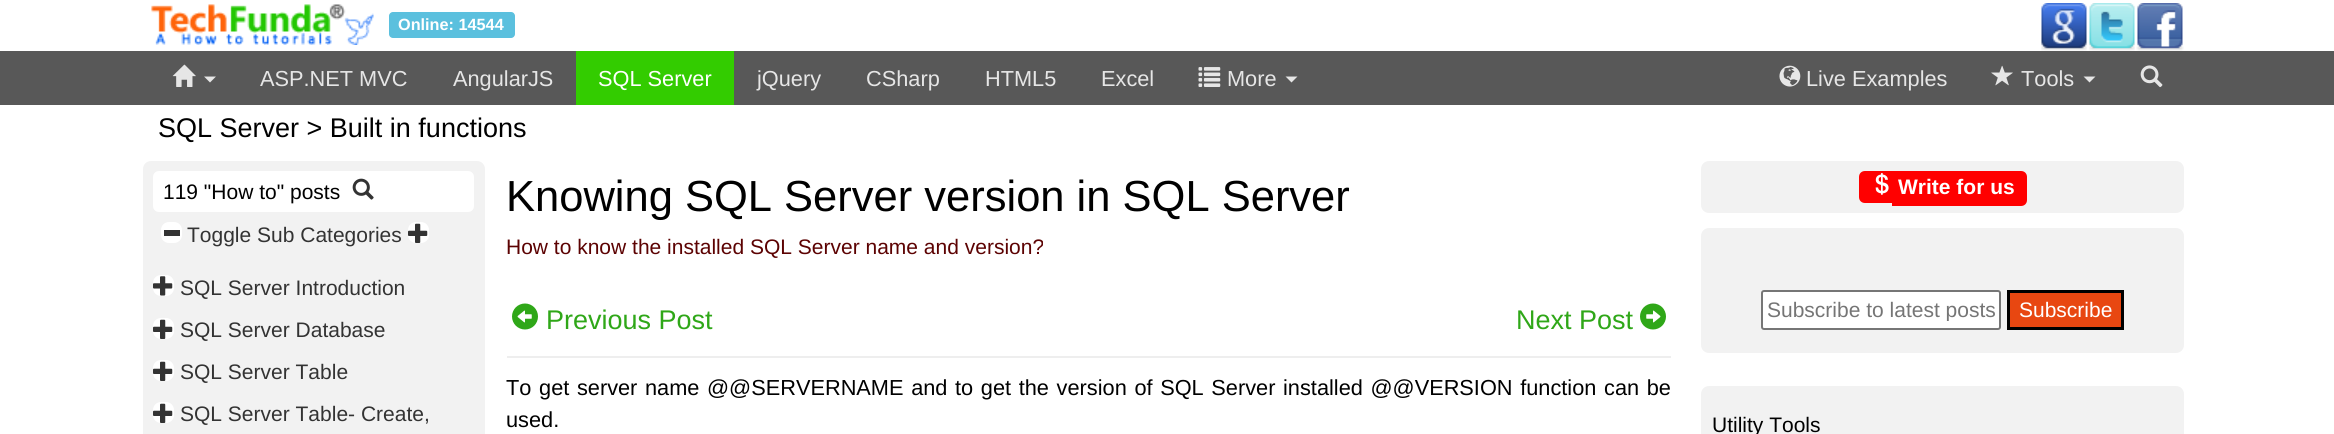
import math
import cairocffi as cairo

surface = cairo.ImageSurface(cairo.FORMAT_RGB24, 2334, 434)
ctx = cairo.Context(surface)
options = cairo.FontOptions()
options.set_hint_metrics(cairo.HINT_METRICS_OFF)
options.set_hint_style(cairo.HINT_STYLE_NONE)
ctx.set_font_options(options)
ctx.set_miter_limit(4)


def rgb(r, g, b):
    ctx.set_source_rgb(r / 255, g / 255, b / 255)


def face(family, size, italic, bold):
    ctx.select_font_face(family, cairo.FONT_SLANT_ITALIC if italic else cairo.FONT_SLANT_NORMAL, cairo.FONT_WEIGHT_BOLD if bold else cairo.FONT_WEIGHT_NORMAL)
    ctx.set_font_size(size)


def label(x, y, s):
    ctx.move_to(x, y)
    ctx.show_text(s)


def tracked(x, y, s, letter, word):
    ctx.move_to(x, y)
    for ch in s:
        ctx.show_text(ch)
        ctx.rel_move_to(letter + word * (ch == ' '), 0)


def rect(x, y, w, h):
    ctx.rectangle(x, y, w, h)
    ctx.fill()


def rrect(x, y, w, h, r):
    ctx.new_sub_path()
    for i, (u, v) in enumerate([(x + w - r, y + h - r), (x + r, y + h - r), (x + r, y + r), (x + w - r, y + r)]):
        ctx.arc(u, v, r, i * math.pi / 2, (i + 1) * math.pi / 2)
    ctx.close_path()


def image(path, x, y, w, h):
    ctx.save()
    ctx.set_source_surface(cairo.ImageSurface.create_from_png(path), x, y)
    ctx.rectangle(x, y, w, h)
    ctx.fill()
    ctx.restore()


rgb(255, 255, 255)
ctx.paint()
image('image0.png', 151, 4, 223, 41)
rgb(91, 192, 222)
rrect(389, 12, 126, 26, 4)
ctx.fill()
face('Liberation Sans', 16.25, 0, 1)
rgb(255, 255, 255)
label(398, 30, 'Online: 14544')
image('image1.png', 2041, 3, 46, 48)
image('image2.png', 2089, 3, 46, 48)
image('image3.png', 2136, 3, 48, 48)
rgb(88, 88, 88)
rect(0, 51, 2334, 54)
image('image4.png', 172, 64, 24, 23)
rgb(230, 230, 230)
ctx.new_path()
ctx.move_to(204, 76.5)
ctx.line_to(216, 76.5)
ctx.line_to(210, 82.5)
ctx.close_path()
ctx.fill()
face('Liberation Sans', 21.75, 0, 0)
label(260, 86, 'ASP.NET MVC')
label(453, 86, 'AngularJS')
rgb(51, 204, 0)
rect(576, 51, 158, 54)
rgb(255, 255, 255)
label(598, 86, 'SQL Server')
rgb(230, 230, 230)
label(757, 86, 'jQuery')
label(866, 86, 'CSharp')
label(985, 86, 'HTML5')
label(1101, 86, 'Excel')
image('image5.png', 1198, 67, 23, 20)
label(1227, 86, 'More')
ctx.new_path()
ctx.move_to(1285.5, 76.5)
ctx.line_to(1297.5, 76.5)
ctx.line_to(1291.5, 82.5)
ctx.close_path()
ctx.fill()
image('image6.png', 1779, 65, 22, 22)
label(1806, 86, 'Live Examples')
image('image7.png', 1991, 65, 22, 21)
label(2021, 86, 'Tools')
ctx.new_path()
ctx.move_to(2083.5, 76.5)
ctx.line_to(2095.5, 76.5)
ctx.line_to(2089.5, 82.5)
ctx.close_path()
ctx.fill()
image('image8.png', 2140, 65, 23, 23)
face('Liberation Sans', 27, 0, 0)
rgb(0, 0, 0)
label(158, 137, 'SQL Server > Built in functions')
rgb(242, 242, 242)
rrect(143, 161, 342, 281, 8)
ctx.fill()
rgb(255, 255, 255)
rrect(153, 171, 321, 41, 6)
ctx.fill()
face('Liberation Sans', 21, 0, 0)
rgb(0, 0, 0)
label(163, 199, '119 "How to" posts')
image('image9.png', 352, 178, 22, 22)
rgb(255, 255, 255)
rrect(161, 222, 21, 21, 8)
ctx.fill()
rgb(51, 51, 51)
rect(164, 230, 16, 6)
label(187, 242, 'Toggle Sub Categories')
rgb(255, 255, 255)
rrect(408, 222, 21, 21, 8)
ctx.fill()
image('image10.png', 408, 223, 20, 20)
rrect(153, 275, 21, 21, 8)
ctx.fill()
image('image11.png', 153, 276, 20, 20)
rgb(51, 51, 51)
label(180, 295, 'SQL Server Introduction')
rgb(255, 255, 255)
rrect(153, 318, 21, 21, 8)
ctx.fill()
image('image10.png', 153, 319, 20, 20)
rgb(51, 51, 51)
label(180, 337, 'SQL Server Database')
rgb(255, 255, 255)
rrect(153, 360, 21, 21, 8)
ctx.fill()
image('image10.png', 153, 361, 20, 20)
rgb(51, 51, 51)
label(180, 379, 'SQL Server Table')
rgb(255, 255, 255)
rrect(153, 402, 21, 21, 8)
ctx.fill()
image('image10.png', 153, 403, 20, 20)
rgb(51, 51, 51)
label(180, 421, 'SQL Server Table- Create,')
face('Liberation Sans', 43.5, 0, 0)
rgb(0, 0, 0)
label(506, 211, 'Knowing SQL Server version in SQL Server')
face('Liberation Sans', 21, 0, 0)
rgb(92, 2, 2)
label(506, 254, 'How to know the installed SQL Server name and version?')
image('image12.png', 512, 303, 26, 27)
face('Liberation Sans', 27, 0, 0)
rgb(47, 167, 24)
label(546, 329, 'Previous Post')
label(1516, 329, 'Next Post')
image('image13.png', 1640, 303, 26, 27)
rgb(238, 238, 238)
rect(507, 356, 1164, 2)
face('Liberation Sans', 21.75, 0, 0)
rgb(0, 0, 0)
tracked(506, 395, 'To get server name @@SERVERNAME and to get the version of SQL Server installed @@VERSION function can be', 0, 1.6)
label(506, 427, 'used.')
rgb(242, 242, 242)
rrect(1701, 161, 483, 52, 8)
ctx.fill()
rgb(255, 0, 0)
ctx.new_path()
ctx.move_to(1865, 171)
ctx.line_to(1892, 171)
ctx.line_to(1892, 203)
ctx.line_to(1865, 203)
ctx.curve_to(1861.5, 203, 1859, 200.5, 1859, 197)
ctx.line_to(1859, 177)
ctx.curve_to(1859, 173.5, 1861.5, 171, 1865, 171)
ctx.close_path()
ctx.fill()
ctx.new_path()
ctx.move_to(1892, 171)
ctx.line_to(2021, 171)
ctx.curve_to(2024.5, 171, 2027, 173.5, 2027, 177)
ctx.line_to(2027, 200)
ctx.curve_to(2027, 203.5, 2024.5, 206, 2021, 206)
ctx.line_to(1892, 206)
ctx.close_path()
ctx.fill()
image('image14.png', 1875, 173, 14, 22)
face('Liberation Sans', 21, 0, 1)
rgb(255, 255, 255)
label(1898, 194, 'Write for us')
rgb(242, 242, 242)
rrect(1701, 228, 483, 125, 8)
ctx.fill()
rgb(255, 255, 255)
rrect(1762, 291, 238, 38, 2)
ctx.fill_preserve()
rgb(118, 118, 118)
ctx.stroke()
ctx.save()
ctx.rectangle(1767, 297, 228, 24)
ctx.clip()
face('Liberation Sans', 21, 0, 0)
rgb(117, 117, 117)
label(1767, 317, 'Subscribe to latest posts')
ctx.restore()
rgb(232, 71, 17)
ctx.rectangle(2008.5, 291.5, 114, 37)
ctx.fill_preserve()
rgb(0, 0, 0)
ctx.set_line_width(3)
ctx.stroke()
face('Liberation Sans', 21, 0, 0)
rgb(255, 255, 255)
label(2019, 317, 'Subscribe')
rgb(242, 242, 242)
rrect(1701, 386, 483, 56, 8)
ctx.fill()
rgb(0, 0, 0)
label(1712, 432, 'Utility Tools')
surface.write_to_png('render.png')
